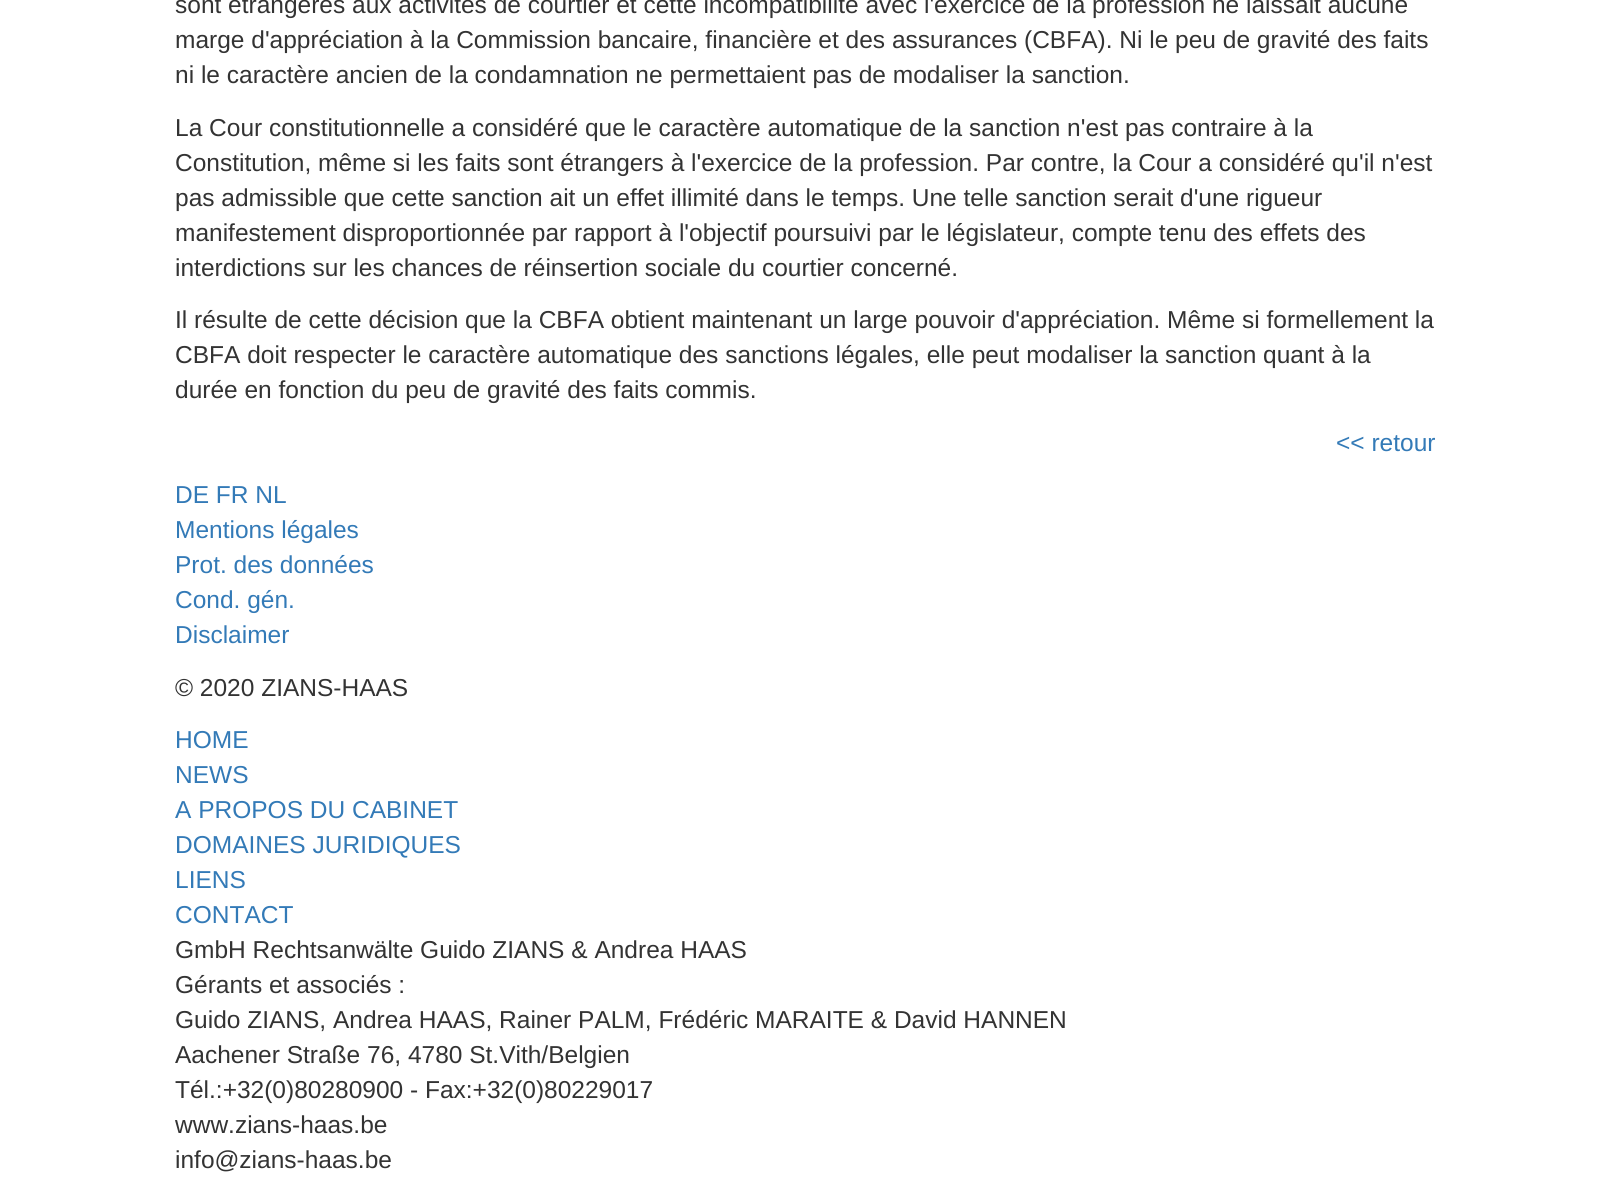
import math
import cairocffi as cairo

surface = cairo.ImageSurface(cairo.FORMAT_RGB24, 1609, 1187)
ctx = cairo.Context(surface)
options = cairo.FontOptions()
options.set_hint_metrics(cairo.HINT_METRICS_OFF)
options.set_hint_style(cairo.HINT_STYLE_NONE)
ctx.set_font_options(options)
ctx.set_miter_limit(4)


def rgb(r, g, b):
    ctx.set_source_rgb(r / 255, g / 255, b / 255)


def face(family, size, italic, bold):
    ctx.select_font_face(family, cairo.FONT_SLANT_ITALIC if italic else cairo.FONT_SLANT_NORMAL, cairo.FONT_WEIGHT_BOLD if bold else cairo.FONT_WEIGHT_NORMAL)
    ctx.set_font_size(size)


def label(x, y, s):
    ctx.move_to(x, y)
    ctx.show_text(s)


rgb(255, 255, 255)
ctx.paint()
face('Liberation Sans', 24.5, 0, 0)
rgb(51, 51, 51)
label(175, 13, 'sont étrangères aux activités de courtier et cette incompatibilité avec l\'exercice de la profession ne laissait aucune')
label(175, 48, 'marge d\'appréciation à la Commission bancaire, financière et des assurances (CBFA). Ni le peu de gravité des faits')
label(175, 83, 'ni le caractère ancien de la condamnation ne permettaient pas de modaliser la sanction.')
label(175, 136, 'La Cour constitutionnelle a considéré que le caractère automatique de la sanction n\'est pas contraire à la')
label(175, 171, 'Constitution, même si les faits sont étrangers à l\'exercice de la profession. Par contre, la Cour a considéré qu\'il n\'est')
label(175, 206, 'pas admissible que cette sanction ait un effet illimité dans le temps. Une telle sanction serait d\'une rigueur')
label(175, 241, 'manifestement disproportionnée par rapport à l\'objectif poursuivi par le législateur, compte tenu des effets des')
label(175, 276, 'interdictions sur les chances de réinsertion sociale du courtier concerné.')
label(175, 328, 'Il résulte de cette décision que la CBFA obtient maintenant un large pouvoir d\'appréciation. Même si formellement la')
label(175, 363, 'CBFA doit respecter le caractère automatique des sanctions légales, elle peut modaliser la sanction quant à la')
label(175, 398, 'durée en fonction du peu de gravité des faits commis.')
rgb(51, 122, 183)
label(1336, 451, '<< retour')
label(175, 503, 'DE FR NL')
label(175, 538, 'Mentions légales')
label(175, 573, 'Prot. des données')
label(175, 608, 'Cond. gén.')
label(175, 643, 'Disclaimer')
rgb(51, 51, 51)
label(175, 696, '© 2020 ZIANS-HAAS')
rgb(51, 122, 183)
label(175, 748, 'HOME')
label(175, 783, 'NEWS')
label(175, 818, 'A PROPOS DU CABINET')
label(175, 853, 'DOMAINES JURIDIQUES')
label(175, 888, 'LIENS')
label(175, 923, 'CONTACT')
rgb(51, 51, 51)
label(175, 958, 'GmbH Rechtsanwälte Guido ZIANS & Andrea HAAS')
label(175, 993, 'Gérants et associés :')
label(175, 1028, 'Guido ZIANS, Andrea HAAS, Rainer PALM, Frédéric MARAITE & David HANNEN')
label(175, 1063, 'Aachener Straße 76, 4780 St.Vith/Belgien')
label(175, 1098, 'Tél.:+32(0)80280900 - Fax:+32(0)80229017')
label(175, 1133, 'www.zians-haas.be')
label(175, 1168, 'info@zians-haas.be')
surface.write_to_png('render.png')
